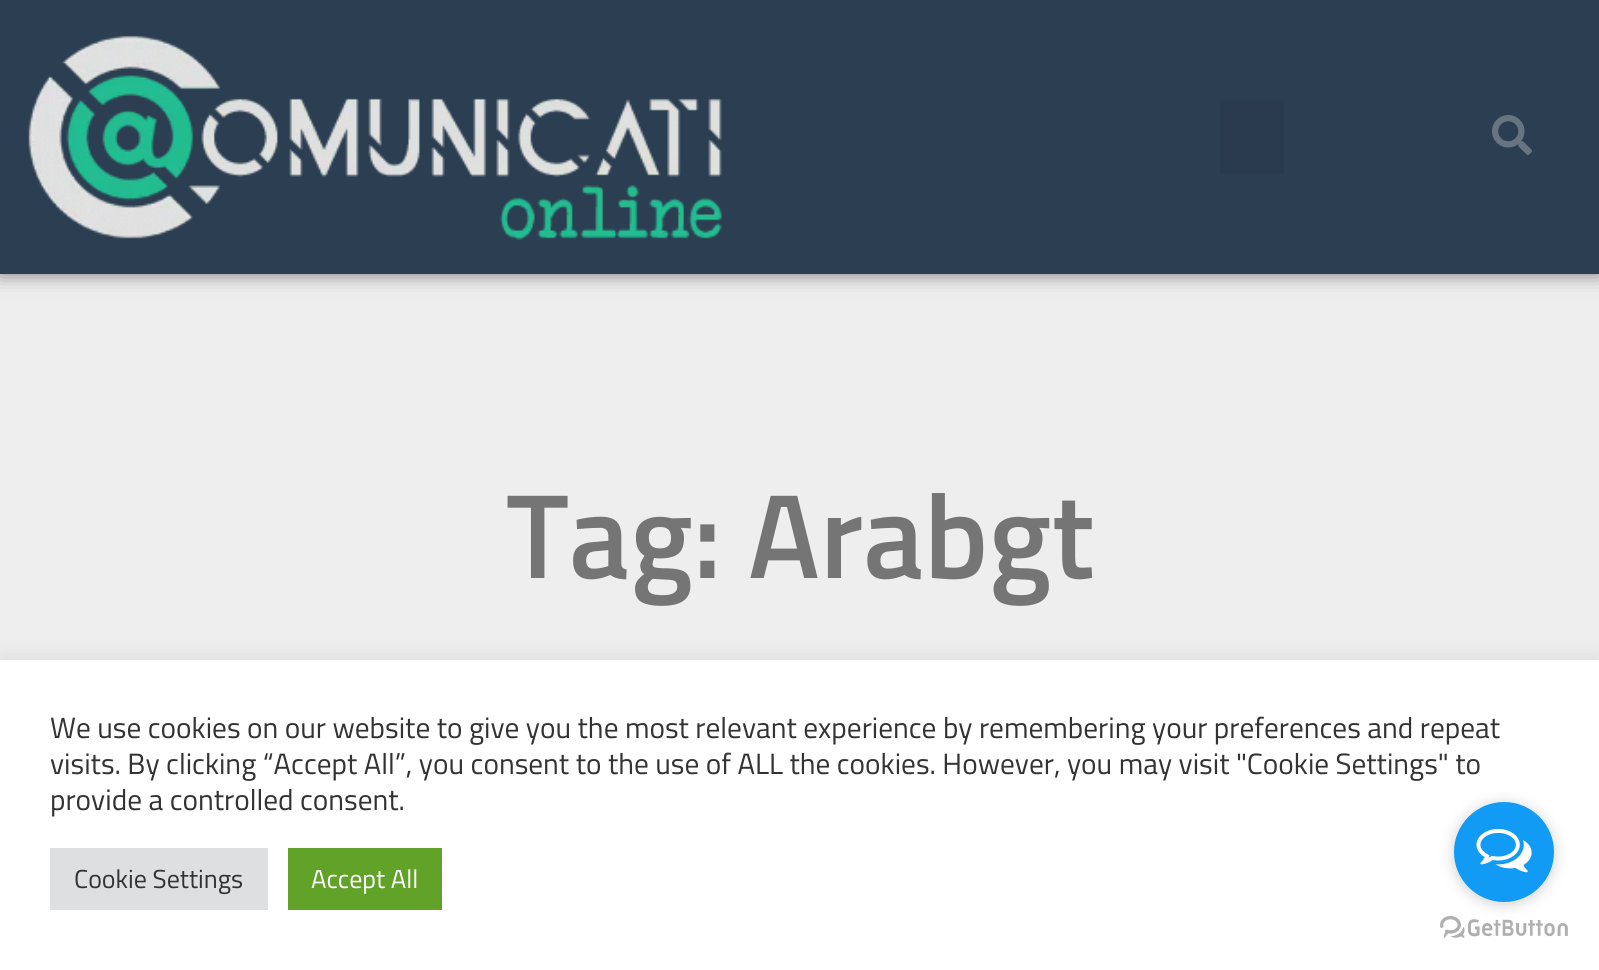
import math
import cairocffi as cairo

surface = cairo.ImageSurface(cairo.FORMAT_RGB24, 1599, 970)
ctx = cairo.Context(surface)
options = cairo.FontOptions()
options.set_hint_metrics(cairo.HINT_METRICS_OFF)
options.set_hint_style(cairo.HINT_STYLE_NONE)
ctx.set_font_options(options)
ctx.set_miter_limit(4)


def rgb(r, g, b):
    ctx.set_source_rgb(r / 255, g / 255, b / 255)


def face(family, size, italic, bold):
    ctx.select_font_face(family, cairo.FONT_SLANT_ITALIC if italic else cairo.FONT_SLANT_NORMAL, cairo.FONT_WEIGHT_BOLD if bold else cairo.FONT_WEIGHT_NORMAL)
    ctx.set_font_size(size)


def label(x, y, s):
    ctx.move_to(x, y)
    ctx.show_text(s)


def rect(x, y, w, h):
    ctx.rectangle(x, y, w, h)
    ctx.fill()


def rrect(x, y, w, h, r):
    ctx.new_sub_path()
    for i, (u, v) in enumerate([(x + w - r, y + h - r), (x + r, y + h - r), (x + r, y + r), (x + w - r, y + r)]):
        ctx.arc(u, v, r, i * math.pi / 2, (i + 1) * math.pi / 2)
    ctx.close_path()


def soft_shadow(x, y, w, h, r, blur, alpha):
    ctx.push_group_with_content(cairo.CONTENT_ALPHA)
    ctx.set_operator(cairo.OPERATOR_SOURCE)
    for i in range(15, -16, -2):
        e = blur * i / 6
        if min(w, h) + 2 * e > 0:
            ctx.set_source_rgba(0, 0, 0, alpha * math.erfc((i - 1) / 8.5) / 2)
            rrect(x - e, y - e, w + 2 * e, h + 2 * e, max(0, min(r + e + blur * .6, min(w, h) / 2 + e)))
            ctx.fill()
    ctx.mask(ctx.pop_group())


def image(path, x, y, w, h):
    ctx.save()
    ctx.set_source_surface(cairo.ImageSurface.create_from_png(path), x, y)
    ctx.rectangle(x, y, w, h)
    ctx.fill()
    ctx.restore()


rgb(238, 238, 238)
ctx.paint()
rgb(0, 0, 0)
soft_shadow(0, 0, 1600, 274, 0, 10, 0.5)
rgb(44, 62, 81)
rect(0, 0, 1599, 274)
image('image0.png', 28, 35, 694, 205)
rgb(42, 59, 77)
rect(1220, 100, 64, 74)
image('image1.png', 1492, 115, 40, 40)
face('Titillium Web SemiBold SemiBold', 120, 0, 0)
rgb(117, 117, 117)
label(506, 578, 'Tag: Arabgt')
rgb(172, 171, 171)
soft_shadow(0, 658, 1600, 310, 0, 10, 0.3)
rgb(255, 255, 255)
rect(0, 660, 1599, 310)
face('Titillium Web', 29.35, 0, 0)
rgb(51, 51, 51)
label(50, 738, 'We use cookies on our website to give you the most relevant experience by remembering your preferences and repeat')
label(50, 774, 'visits. By clicking “Accept All”, you consent to the use of ALL the cookies. However, you may visit "Cookie Settings" to')
label(50, 810, 'provide a controlled consent.')
rgb(222, 223, 224)
rect(50, 848, 218, 62)
face('Titillium Web', 26, 0, 0)
rgb(51, 51, 51)
label(74, 888, 'Cookie Settings')
rgb(97, 162, 41)
rect(288, 848, 154, 62)
rgb(255, 255, 255)
label(311, 888, 'Accept All')
image('image3.png', 1440, 916, 128, 22)
rgb(136, 136, 136)
soft_shadow(1454, 804, 100, 100, 50, 7, 0.4)
rgb(18, 155, 244)
ctx.arc(1504, 852, 50, 0, 2 * math.pi)
ctx.fill()
image('image2.png', 1476, 829, 56, 44)
surface.write_to_png('render.png')
